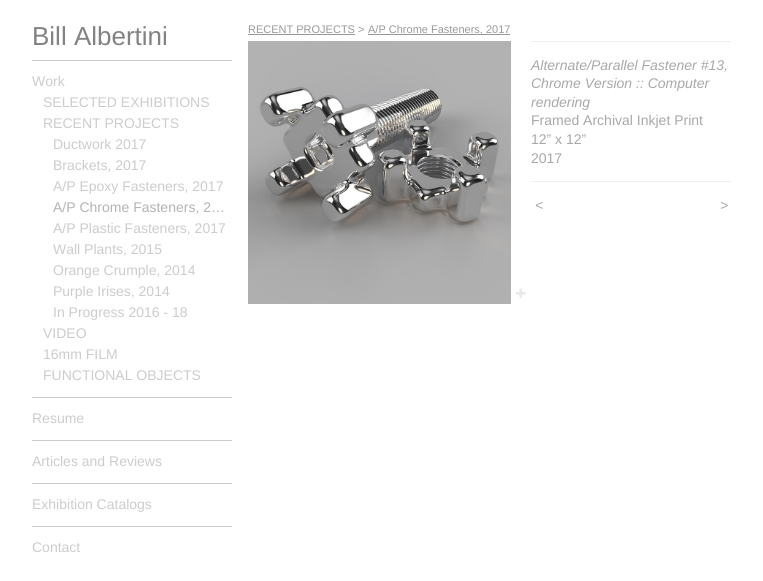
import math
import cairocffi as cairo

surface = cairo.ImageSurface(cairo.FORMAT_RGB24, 763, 581)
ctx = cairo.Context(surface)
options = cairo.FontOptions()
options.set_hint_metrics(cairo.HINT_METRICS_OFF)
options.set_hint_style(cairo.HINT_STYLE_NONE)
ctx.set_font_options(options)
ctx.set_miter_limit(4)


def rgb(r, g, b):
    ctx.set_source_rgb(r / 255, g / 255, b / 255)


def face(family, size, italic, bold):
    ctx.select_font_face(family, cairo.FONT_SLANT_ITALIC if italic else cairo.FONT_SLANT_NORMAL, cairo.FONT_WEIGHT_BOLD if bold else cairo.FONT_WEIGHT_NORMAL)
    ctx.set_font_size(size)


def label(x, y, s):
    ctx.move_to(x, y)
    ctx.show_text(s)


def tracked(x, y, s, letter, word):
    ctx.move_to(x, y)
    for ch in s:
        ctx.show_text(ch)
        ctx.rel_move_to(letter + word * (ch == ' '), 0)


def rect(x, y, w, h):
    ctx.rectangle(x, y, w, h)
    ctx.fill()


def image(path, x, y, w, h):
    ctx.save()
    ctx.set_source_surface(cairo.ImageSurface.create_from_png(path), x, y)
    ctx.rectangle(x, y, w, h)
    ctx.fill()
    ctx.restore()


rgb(255, 255, 255)
ctx.paint()
face('Liberation Sans', 26, 0, 0)
rgb(130, 130, 130)
label(32, 45, 'Bill Albertini')
rgb(204, 204, 204)
rect(32, 60, 200, 1)
face('Liberation Sans', 14, 0, 0)
label(32, 86, 'Work')
label(43, 107, 'SELECTED EXHIBITIONS')
label(43, 128, 'RECENT PROJECTS')
label(53, 149, 'Ductwork 2017')
label(53, 170, 'Brackets, 2017')
label(53, 191, 'A/P Epoxy Fasteners, 2017')
rgb(179, 179, 179)
label(53, 212, 'A/P Chrome Fasteners, 2…')
rgb(204, 204, 204)
label(53, 233, 'A/P Plastic Fasteners, 2017')
label(53, 254, 'Wall Plants, 2015')
label(53, 275, 'Orange Crumple, 2014')
label(53, 296, 'Purple Irises, 2014')
label(53, 317, 'In Progress 2016 - 18')
label(43, 338, 'VIDEO')
label(43, 359, '16mm FILM')
label(43, 380, 'FUNCTIONAL OBJECTS')
rect(32, 397, 200, 1)
label(32, 423, 'Resume')
rect(32, 440, 200, 1)
label(32, 466, 'Articles and Reviews')
rect(32, 483, 200, 1)
label(32, 509, 'Exhibition Catalogs')
rect(32, 526, 200, 1)
label(32, 552, 'Contact')
face('Liberation Sans', 11, 0, 0)
rgb(153, 153, 153)
label(248, 33, 'RECENT PROJECTS >')
rect(248, 34, 107, 1)
rect(368, 34, 142, 1)
label(368, 33, 'A/P Chrome Fasteners, 2017')
image('image0.png', 248, 41, 263, 263)
image('image1.png', 516, 288, 10, 10)
rgb(238, 238, 238)
rect(531, 41, 200, 1)
face('Liberation Sans', 14, 1, 0)
rgb(168, 168, 168)
label(531, 70, 'Alternate/Parallel Fastener #13,')
label(531, 88, 'Chrome Version :: Computer')
label(531, 107, 'rendering')
face('Liberation Sans', 14, 0, 0)
label(531, 125, 'Framed Archival Inkjet Print')
label(531, 144, '12” x 12”')
label(531, 163, '2017')
rgb(238, 238, 238)
rect(531, 181, 200, 1)
face('Liberation Sans', 14, 1, 0)
rgb(168, 168, 168)
tracked(535, 210, '<', 1, 0)
tracked(720, 210, '>', 1, 0)
surface.write_to_png('render.png')
